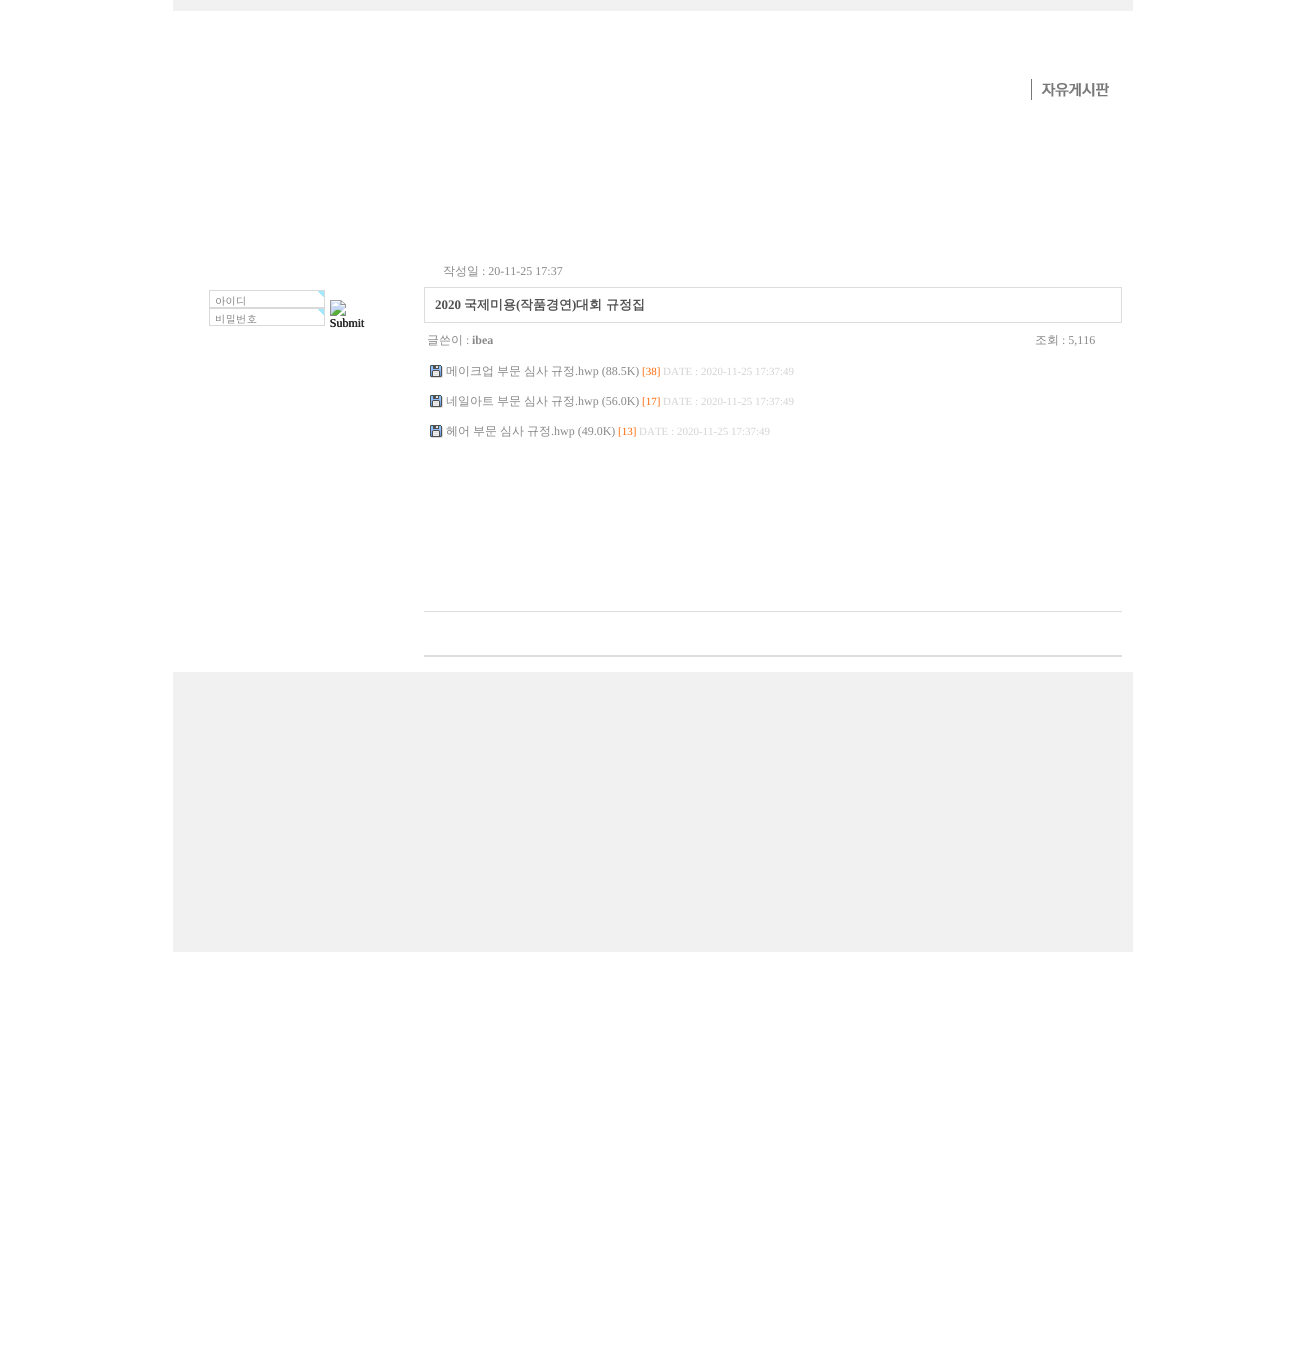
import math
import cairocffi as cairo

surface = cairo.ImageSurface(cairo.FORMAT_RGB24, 1306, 1365)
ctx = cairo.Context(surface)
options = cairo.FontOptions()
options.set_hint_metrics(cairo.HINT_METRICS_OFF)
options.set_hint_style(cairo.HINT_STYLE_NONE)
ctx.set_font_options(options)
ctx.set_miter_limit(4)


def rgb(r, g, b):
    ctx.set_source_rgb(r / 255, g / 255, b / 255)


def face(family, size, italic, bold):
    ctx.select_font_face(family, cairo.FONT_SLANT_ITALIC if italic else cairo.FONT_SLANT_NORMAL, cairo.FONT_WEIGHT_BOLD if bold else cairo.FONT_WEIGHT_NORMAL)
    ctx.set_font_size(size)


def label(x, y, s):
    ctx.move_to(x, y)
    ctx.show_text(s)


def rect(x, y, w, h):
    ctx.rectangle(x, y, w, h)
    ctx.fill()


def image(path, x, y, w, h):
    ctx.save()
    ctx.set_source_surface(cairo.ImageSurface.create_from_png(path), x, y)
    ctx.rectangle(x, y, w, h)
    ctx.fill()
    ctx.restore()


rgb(255, 255, 255)
ctx.paint()
rgb(241, 241, 241)
rect(173, 0, 960, 11)
image('image0.png', 1031, 79, 78, 21)
image('image1.png', 318, 291, 6, 6)
ctx.rectangle(209.5, 290.5, 115, 17)
rgb(217, 217, 217)
ctx.set_line_width(1)
ctx.stroke()
face('Dotum', 10.5, 0, 0)
rgb(119, 119, 119)
label(215, 305, '아이디')
image('image1.png', 318, 309, 6, 6)
ctx.rectangle(209.5, 308.5, 115, 17)
rgb(217, 217, 217)
ctx.stroke()
rgb(119, 119, 119)
label(215, 323, '비밀번호')
image('image2.png', 330, 300, 34, 27)
face('Liberation Serif', 12, 0, 0)
rgb(34, 34, 34)
label(330, 327, 'Submit')
face('WenQuanYi Zen Hei Medium', 12, 0, 0)
rgb(136, 136, 136)
label(443, 275, '작성일')
face('Liberation Serif', 12, 0, 0)
label(482, 275, ': 20-11-25 17:37')
ctx.rectangle(424.5, 287.5, 697, 35)
rgb(221, 221, 221)
ctx.stroke()
face('Liberation Serif', 13, 0, 1)
rgb(80, 80, 80)
label(435, 309, '2020')
face('WenQuanYi Zen Hei', 13, 0, 1)
label(464, 309, '국제미용')
face('Liberation Serif', 13, 0, 1)
label(516, 309, '(')
face('WenQuanYi Zen Hei', 13, 0, 1)
label(520, 309, '작품경연')
face('Liberation Serif', 13, 0, 1)
label(572, 309, ')')
face('WenQuanYi Zen Hei', 13, 0, 1)
label(576, 309, '대회 규정집')
face('WenQuanYi Zen Hei Medium', 12, 0, 0)
rgb(136, 136, 136)
label(427, 344, '글쓴이')
face('Liberation Serif', 12, 0, 0)
label(466, 344, ':')
face('Liberation Serif', 12, 0, 1)
label(472, 344, 'ibea')
face('WenQuanYi Zen Hei Medium', 12, 0, 0)
label(1035, 344, '조회')
face('Liberation Serif', 12, 0, 0)
label(1062, 344, ': 5,116')
image('image3.png', 430, 365, 13, 13)
face('WenQuanYi Zen Hei Medium', 12, 0, 0)
label(446, 375, '메이크업')
label(497, 375, '부문')
label(524, 375, '심사')
label(551, 375, '규정')
face('Liberation Serif', 12, 0, 0)
label(575, 375, '.hwp (88.5K)')
face('Liberation Serif', 11, 0, 0)
rgb(255, 102, 0)
label(642, 375, '[38]')
rgb(211, 211, 211)
label(663, 375, 'DATE : 2020-11-25 17:37:49')
image('image3.png', 430, 395, 13, 13)
face('WenQuanYi Zen Hei Medium', 12, 0, 0)
rgb(136, 136, 136)
label(446, 405, '네일아트')
label(497, 405, '부문')
label(524, 405, '심사')
label(551, 405, '규정')
face('Liberation Serif', 12, 0, 0)
label(575, 405, '.hwp (56.0K)')
face('Liberation Serif', 11, 0, 0)
rgb(255, 102, 0)
label(642, 405, '[17]')
rgb(211, 211, 211)
label(663, 405, 'DATE : 2020-11-25 17:37:49')
image('image3.png', 430, 425, 13, 13)
face('WenQuanYi Zen Hei Medium', 12, 0, 0)
rgb(136, 136, 136)
label(446, 435, '헤어')
label(473, 435, '부문')
label(500, 435, '심사')
label(527, 435, '규정')
face('Liberation Serif', 12, 0, 0)
label(551, 435, '.hwp (49.0K)')
face('Liberation Serif', 11, 0, 0)
rgb(255, 102, 0)
label(618, 435, '[13]')
rgb(211, 211, 211)
label(639, 435, 'DATE : 2020-11-25 17:37:49')
rgb(221, 221, 221)
rect(424, 611, 698, 1)
rgb(222, 222, 222)
rect(424, 655, 698, 2)
rgb(241, 241, 241)
rect(173, 672, 960, 280)
surface.write_to_png('render.png')
